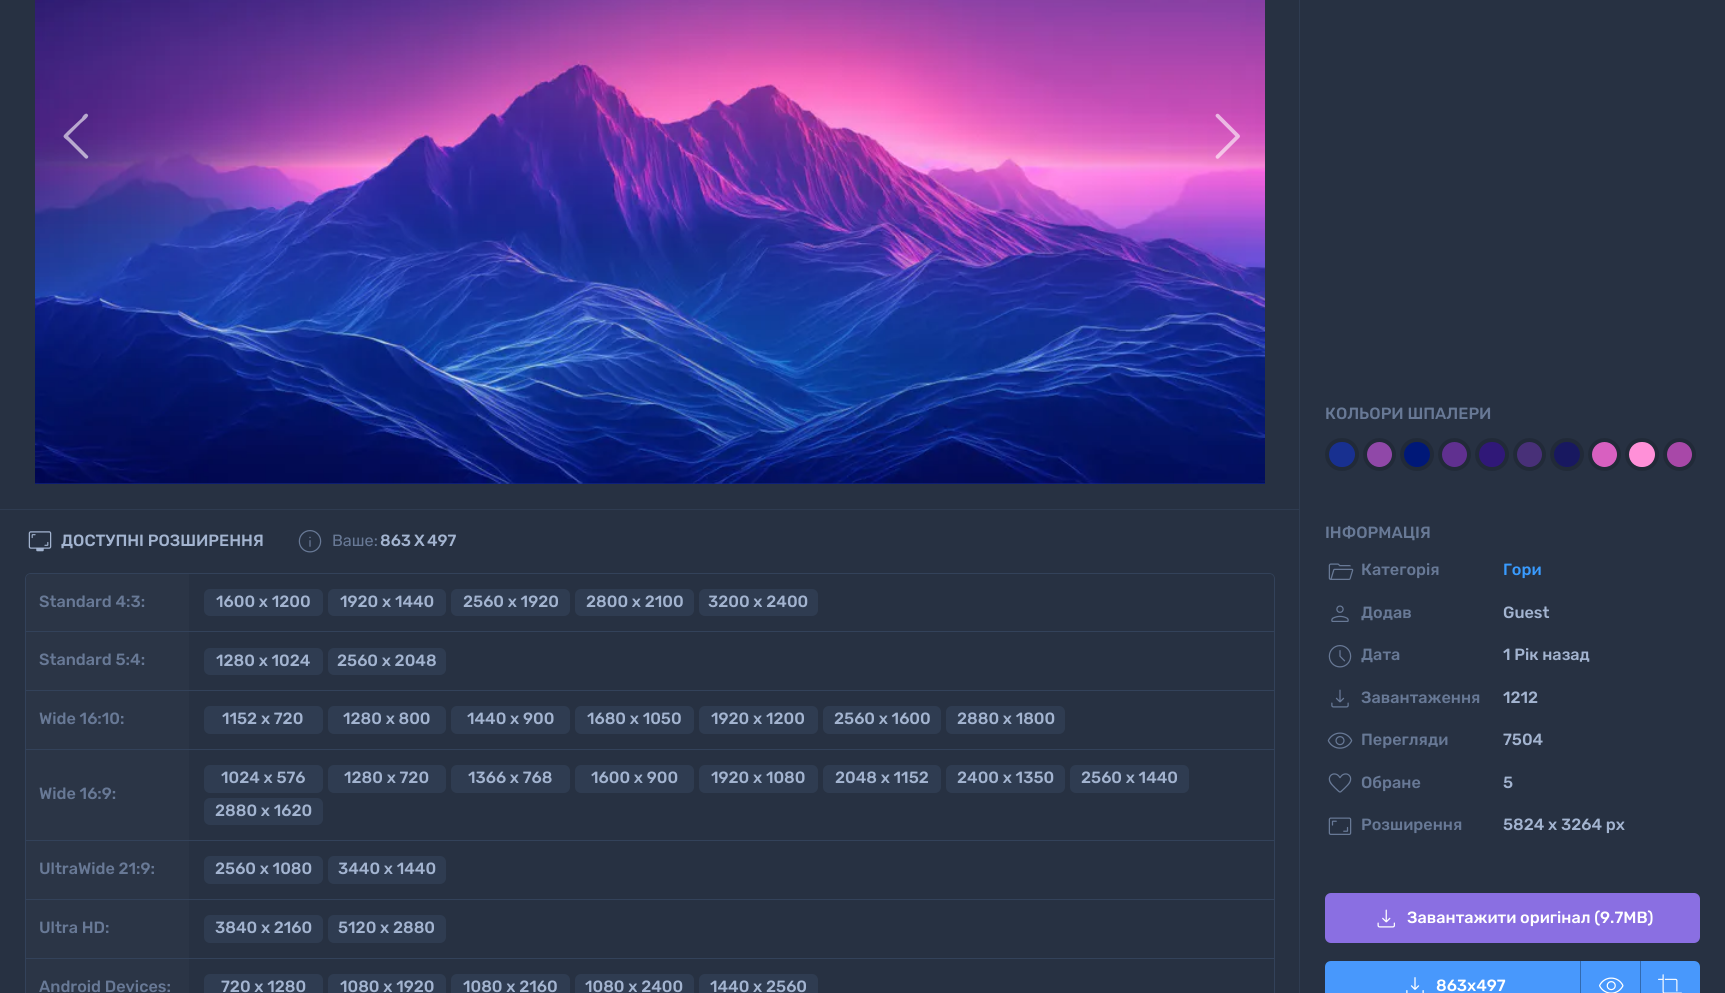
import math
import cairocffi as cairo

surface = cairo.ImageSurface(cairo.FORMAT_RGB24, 1725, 993)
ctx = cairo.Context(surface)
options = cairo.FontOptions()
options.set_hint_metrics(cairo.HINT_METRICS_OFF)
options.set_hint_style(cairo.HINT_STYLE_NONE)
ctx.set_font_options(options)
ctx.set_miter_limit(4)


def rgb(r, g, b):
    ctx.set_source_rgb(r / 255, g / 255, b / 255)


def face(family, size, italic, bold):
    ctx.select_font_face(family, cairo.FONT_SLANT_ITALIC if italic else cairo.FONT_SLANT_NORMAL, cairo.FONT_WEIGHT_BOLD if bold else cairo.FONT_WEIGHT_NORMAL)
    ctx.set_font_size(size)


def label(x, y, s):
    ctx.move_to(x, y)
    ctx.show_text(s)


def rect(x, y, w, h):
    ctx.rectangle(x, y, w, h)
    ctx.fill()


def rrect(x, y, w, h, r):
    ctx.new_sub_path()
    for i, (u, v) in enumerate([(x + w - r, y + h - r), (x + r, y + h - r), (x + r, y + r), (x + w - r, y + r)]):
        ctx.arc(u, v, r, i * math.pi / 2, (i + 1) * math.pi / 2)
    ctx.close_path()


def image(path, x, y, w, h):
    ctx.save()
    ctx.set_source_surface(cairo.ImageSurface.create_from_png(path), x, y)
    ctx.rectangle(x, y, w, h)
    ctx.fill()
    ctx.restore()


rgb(39, 49, 66)
ctx.paint()
rgb(47, 60, 81)
rect(1299, 0, 1, 993)
rect(0, 509, 1299, 1)
rgb(24, 48, 144)
rect(35, 483, 1230, 1)
image('image0.png', 35, 0, 1230, 484)
ctx.set_source_rgba(1, 1, 1, 0.6)
ctx.new_path()
ctx.move_to(85, 158)
ctx.line_to(68, 141)
ctx.curve_to(62, 136, 62, 137, 68, 131)
ctx.line_to(82, 118)
ctx.curve_to(82, 117, 86, 111, 88, 115)
ctx.curve_to(89, 117, 82, 122, 81, 123)
ctx.line_to(68, 136)
ctx.line_to(88, 156)
ctx.curve_to(89, 157, 87, 160, 85, 158)
ctx.close_path()
ctx.fill()
image('image1.png', 1215, 113, 25, 46)
image('image2.png', 28, 531, 24, 21)
face('Rubik Medium', 16.25, 0, 0)
rgb(163, 180, 208)
label(61, 546, 'ДОСТУПНІ РОЗШИРЕННЯ')
image('image3.png', 298, 530, 24, 23)
face('Rubik', 16.25, 0, 0)
rgb(104, 121, 150)
label(332, 546, 'Ваше:')
face('Rubik Medium', 16.25, 0, 0)
rgb(163, 180, 208)
label(380, 546, '863')
label(414, 546, 'X')
label(427, 546, '497')
rrect(25.5, 573.5, 1249, 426, 5.5)
rgb(51, 66, 90)
ctx.set_line_width(1)
ctx.stroke()
rgb(43, 53, 70)
ctx.new_path()
ctx.move_to(31, 574)
ctx.line_to(189, 574)
ctx.line_to(189, 631)
ctx.line_to(26, 631)
ctx.line_to(26, 579)
ctx.curve_to(26, 576, 28, 574, 31, 574)
ctx.close_path()
ctx.fill()
rgb(104, 121, 150)
label(39, 607, 'Standard 4:3:')
rgb(39, 49, 66)
ctx.new_path()
ctx.move_to(189, 574)
ctx.line_to(1269, 574)
ctx.curve_to(1272, 574, 1274, 576, 1274, 579)
ctx.line_to(1274, 631)
ctx.line_to(189, 631)
ctx.close_path()
ctx.fill()
rgb(47, 60, 81)
rrect(204, 589, 119, 27, 6)
ctx.fill()
rgb(163, 180, 208)
label(216, 607, '1600 x 1200')
rgb(47, 60, 81)
rrect(328, 589, 118, 27, 6)
ctx.fill()
rgb(163, 180, 208)
label(340, 607, '1920 x 1440')
rgb(47, 60, 81)
rrect(451, 589, 119, 27, 6)
ctx.fill()
rgb(163, 180, 208)
label(463, 607, '2560 x 1920')
rgb(47, 60, 81)
rrect(575, 589, 119, 27, 6)
ctx.fill()
rgb(163, 180, 208)
label(586, 607, '2800 x 2100')
rgb(47, 60, 81)
rrect(699, 589, 119, 27, 6)
ctx.fill()
rgb(163, 180, 208)
label(708, 607, '3200 x 2400')
rgb(43, 53, 70)
rect(26, 632, 163, 58)
rgb(104, 121, 150)
label(39, 665, 'Standard 5:4:')
rgb(51, 66, 90)
rect(26, 631, 1248, 1)
rgb(47, 60, 81)
rrect(204, 648, 119, 27, 6)
ctx.fill()
rgb(163, 180, 208)
label(216, 666, '1280 x 1024')
rgb(47, 60, 81)
rrect(328, 648, 118, 27, 6)
ctx.fill()
rgb(163, 180, 208)
label(337, 666, '2560 x 2048')
rgb(43, 53, 70)
rect(26, 691, 163, 58)
rgb(104, 121, 150)
label(39, 724, 'Wide 16:10:')
rgb(51, 66, 90)
rect(26, 690, 1248, 1)
rgb(47, 60, 81)
rrect(204, 706, 119, 28, 6)
ctx.fill()
rgb(163, 180, 208)
label(222, 724, '1152 x 720')
rgb(47, 60, 81)
rrect(328, 706, 118, 28, 6)
ctx.fill()
rgb(163, 180, 208)
label(343, 724, '1280 x 800')
rgb(47, 60, 81)
rrect(451, 706, 119, 28, 6)
ctx.fill()
rgb(163, 180, 208)
label(467, 724, '1440 x 900')
rgb(47, 60, 81)
rrect(575, 706, 119, 28, 6)
ctx.fill()
rgb(163, 180, 208)
label(587, 724, '1680 x 1050')
rgb(47, 60, 81)
rrect(699, 706, 119, 28, 6)
ctx.fill()
rgb(163, 180, 208)
label(711, 724, '1920 x 1200')
rgb(47, 60, 81)
rrect(823, 706, 118, 28, 6)
ctx.fill()
rgb(163, 180, 208)
label(834, 724, '2560 x 1600')
rgb(47, 60, 81)
rrect(946, 706, 119, 28, 6)
ctx.fill()
rgb(163, 180, 208)
label(957, 724, '2880 x 1800')
rgb(43, 53, 70)
rect(26, 750, 163, 90)
rgb(104, 121, 150)
label(39, 799, 'Wide 16:9:')
rgb(51, 66, 90)
rect(26, 749, 1248, 1)
rgb(47, 60, 81)
rrect(204, 765, 119, 28, 6)
ctx.fill()
rgb(163, 180, 208)
label(221, 783, '1024 x 576')
rgb(47, 60, 81)
rrect(328, 765, 118, 28, 6)
ctx.fill()
rgb(163, 180, 208)
label(344, 783, '1280 x 720')
rgb(47, 60, 81)
rrect(451, 765, 119, 28, 6)
ctx.fill()
rgb(163, 180, 208)
label(468, 783, '1366 x 768')
rgb(47, 60, 81)
rrect(575, 765, 119, 28, 6)
ctx.fill()
rgb(163, 180, 208)
label(591, 783, '1600 x 900')
rgb(47, 60, 81)
rrect(699, 765, 119, 28, 6)
ctx.fill()
rgb(163, 180, 208)
label(711, 783, '1920 x 1080')
rgb(47, 60, 81)
rrect(823, 765, 118, 28, 6)
ctx.fill()
rgb(163, 180, 208)
label(835, 783, '2048 x 1152')
rgb(47, 60, 81)
rrect(946, 765, 119, 28, 6)
ctx.fill()
rgb(163, 180, 208)
label(957, 783, '2400 x 1350')
rgb(47, 60, 81)
rrect(1070, 765, 119, 28, 6)
ctx.fill()
rgb(163, 180, 208)
label(1081, 783, '2560 x 1440')
rgb(47, 60, 81)
rrect(204, 798, 119, 27, 6)
ctx.fill()
rgb(163, 180, 208)
label(215, 816, '2880 x 1620')
rgb(43, 53, 70)
rect(26, 841, 163, 58)
rgb(104, 121, 150)
label(39, 874, 'UltraWide 21:9:')
rgb(51, 66, 90)
rect(26, 840, 1248, 1)
rgb(47, 60, 81)
rrect(204, 856, 119, 28, 6)
ctx.fill()
rgb(163, 180, 208)
label(215, 874, '2560 x 1080')
rgb(47, 60, 81)
rrect(328, 856, 118, 28, 6)
ctx.fill()
rgb(163, 180, 208)
label(338, 874, '3440 x 1440')
rgb(43, 53, 70)
rect(26, 900, 163, 58)
rgb(104, 121, 150)
label(39, 933, 'Ultra HD:')
rgb(51, 66, 90)
rect(26, 899, 1248, 1)
rgb(47, 60, 81)
rrect(204, 915, 119, 28, 6)
ctx.fill()
rgb(163, 180, 208)
label(215, 933, '3840 x 2160')
rgb(47, 60, 81)
rrect(328, 915, 118, 28, 6)
ctx.fill()
rgb(163, 180, 208)
label(338, 933, '5120 x 2880')
rgb(43, 53, 70)
rect(26, 959, 163, 34)
rgb(104, 121, 150)
label(39, 992, 'Android Devices:')
rgb(51, 66, 90)
rect(26, 958, 1248, 1)
rgb(47, 60, 81)
rrect(204, 974, 119, 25, 6)
ctx.fill()
rgb(163, 180, 208)
label(221, 992, '720 x 1280')
rgb(47, 60, 81)
rrect(328, 974, 118, 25, 6)
ctx.fill()
rgb(163, 180, 208)
label(340, 992, '1080 x 1920')
rgb(47, 60, 81)
rrect(451, 974, 119, 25, 6)
ctx.fill()
rgb(163, 180, 208)
label(463, 992, '1080 x 2160')
rgb(47, 60, 81)
rrect(575, 974, 119, 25, 6)
ctx.fill()
rgb(163, 180, 208)
label(585, 992, '1080 x 2400')
rgb(47, 60, 81)
rrect(699, 974, 119, 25, 6)
ctx.fill()
rgb(163, 180, 208)
label(710, 992, '1440 x 2560')
rgb(104, 121, 150)
label(1325, 419, 'КОЛЬОРИ ШПАЛЕРИ')
rgb(24, 48, 144)
rrect(1327, 440, 30, 29, 14.5)
ctx.fill_preserve()
rgb(33, 42, 56)
ctx.set_line_width(4)
ctx.stroke()
rgb(144, 72, 168)
ctx.arc(1379.5, 454.5, 14.5, 0, 2 * math.pi)
ctx.fill_preserve()
rgb(33, 42, 56)
ctx.stroke()
rgb(0, 24, 120)
rrect(1402, 440, 30, 29, 14.5)
ctx.fill_preserve()
rgb(33, 42, 56)
ctx.stroke()
rgb(96, 48, 144)
ctx.arc(1454.5, 454.5, 14.5, 0, 2 * math.pi)
ctx.fill_preserve()
rgb(33, 42, 56)
ctx.stroke()
rgb(48, 24, 120)
rrect(1477, 440, 30, 29, 14.5)
ctx.fill_preserve()
rgb(33, 42, 56)
ctx.stroke()
rgb(72, 48, 120)
ctx.arc(1529.5, 454.5, 14.5, 0, 2 * math.pi)
ctx.fill_preserve()
rgb(33, 42, 56)
ctx.stroke()
rgb(24, 24, 96)
rrect(1552, 440, 30, 29, 14.5)
ctx.fill_preserve()
rgb(33, 42, 56)
ctx.stroke()
rgb(216, 96, 192)
ctx.arc(1604.5, 454.5, 14.5, 0, 2 * math.pi)
ctx.fill_preserve()
rgb(33, 42, 56)
ctx.stroke()
rgb(255, 144, 216)
rrect(1627, 440, 30, 29, 14.5)
ctx.fill_preserve()
rgb(33, 42, 56)
ctx.stroke()
rgb(168, 72, 168)
ctx.arc(1679.5, 454.5, 14.5, 0, 2 * math.pi)
ctx.fill_preserve()
rgb(33, 42, 56)
ctx.stroke()
rgb(104, 121, 150)
label(1325, 538, 'ІНФОРМАЦІЯ')
image('image4.png', 1328, 563, 26, 17)
label(1361, 575, 'Категорія')
rgb(57, 155, 255)
label(1503, 575, 'Гори')
image('image5.png', 1331, 605, 18, 17)
rgb(104, 121, 150)
label(1361, 618, 'Додав')
rgb(163, 180, 208)
label(1503, 618, 'Guest')
image('image6.png', 1328, 645, 24, 23)
rgb(104, 121, 150)
label(1361, 660, 'Дата')
rgb(163, 180, 208)
label(1503, 660, '1 Рік назад')
image('image7.png', 1331, 689, 18, 19)
rgb(104, 121, 150)
label(1361, 703, 'Завантаження')
rgb(163, 180, 208)
label(1503, 703, '1212')
image('image8.png', 1327, 732, 26, 17)
rgb(104, 121, 150)
label(1361, 745, 'Перегляди')
rgb(163, 180, 208)
label(1503, 745, '7504')
image('image9.png', 1328, 773, 24, 20)
rgb(104, 121, 150)
label(1361, 788, 'Обране')
rgb(163, 180, 208)
label(1503, 788, '5')
image('image10.png', 1328, 817, 24, 18)
rgb(104, 121, 150)
label(1361, 830, 'Розширення')
rgb(163, 180, 208)
label(1503, 830, '5824 x 3264 px')
rgb(138, 111, 226)
rrect(1325, 893, 375, 50, 6)
ctx.fill()
image('image11.png', 1377, 909, 18, 19)
rgb(255, 255, 255)
label(1407, 923, 'Завантажити оригінал (9.7MB)')
rgb(72, 152, 252)
ctx.new_path()
ctx.move_to(1331, 961)
ctx.line_to(1581, 961)
ctx.line_to(1581, 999)
ctx.line_to(1331, 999)
ctx.curve_to(1327.5, 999, 1325, 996.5, 1325, 993)
ctx.line_to(1325, 967)
ctx.curve_to(1325, 963.5, 1327.5, 961, 1331, 961)
ctx.close_path()
ctx.fill()
image('image12.png', 1406, 977, 18, 16)
rgb(255, 255, 255)
label(1436, 991, '863x497')
rgb(72, 152, 252)
rect(1581, 961, 59, 32)
rgb(50, 106, 176)
rect(1580, 961, 1, 32)
image('image13.png', 1599, 977, 25, 16)
rgb(72, 152, 252)
ctx.new_path()
ctx.move_to(1640, 961)
ctx.line_to(1694, 961)
ctx.curve_to(1697.5, 961, 1700, 963.5, 1700, 967)
ctx.line_to(1700, 993)
ctx.curve_to(1700, 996.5, 1697.5, 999, 1694, 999)
ctx.line_to(1640, 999)
ctx.close_path()
ctx.fill()
rgb(50, 106, 176)
rect(1640, 961, 1, 32)
image('image14.png', 1658, 974, 24, 19)
surface.write_to_png('render.png')
